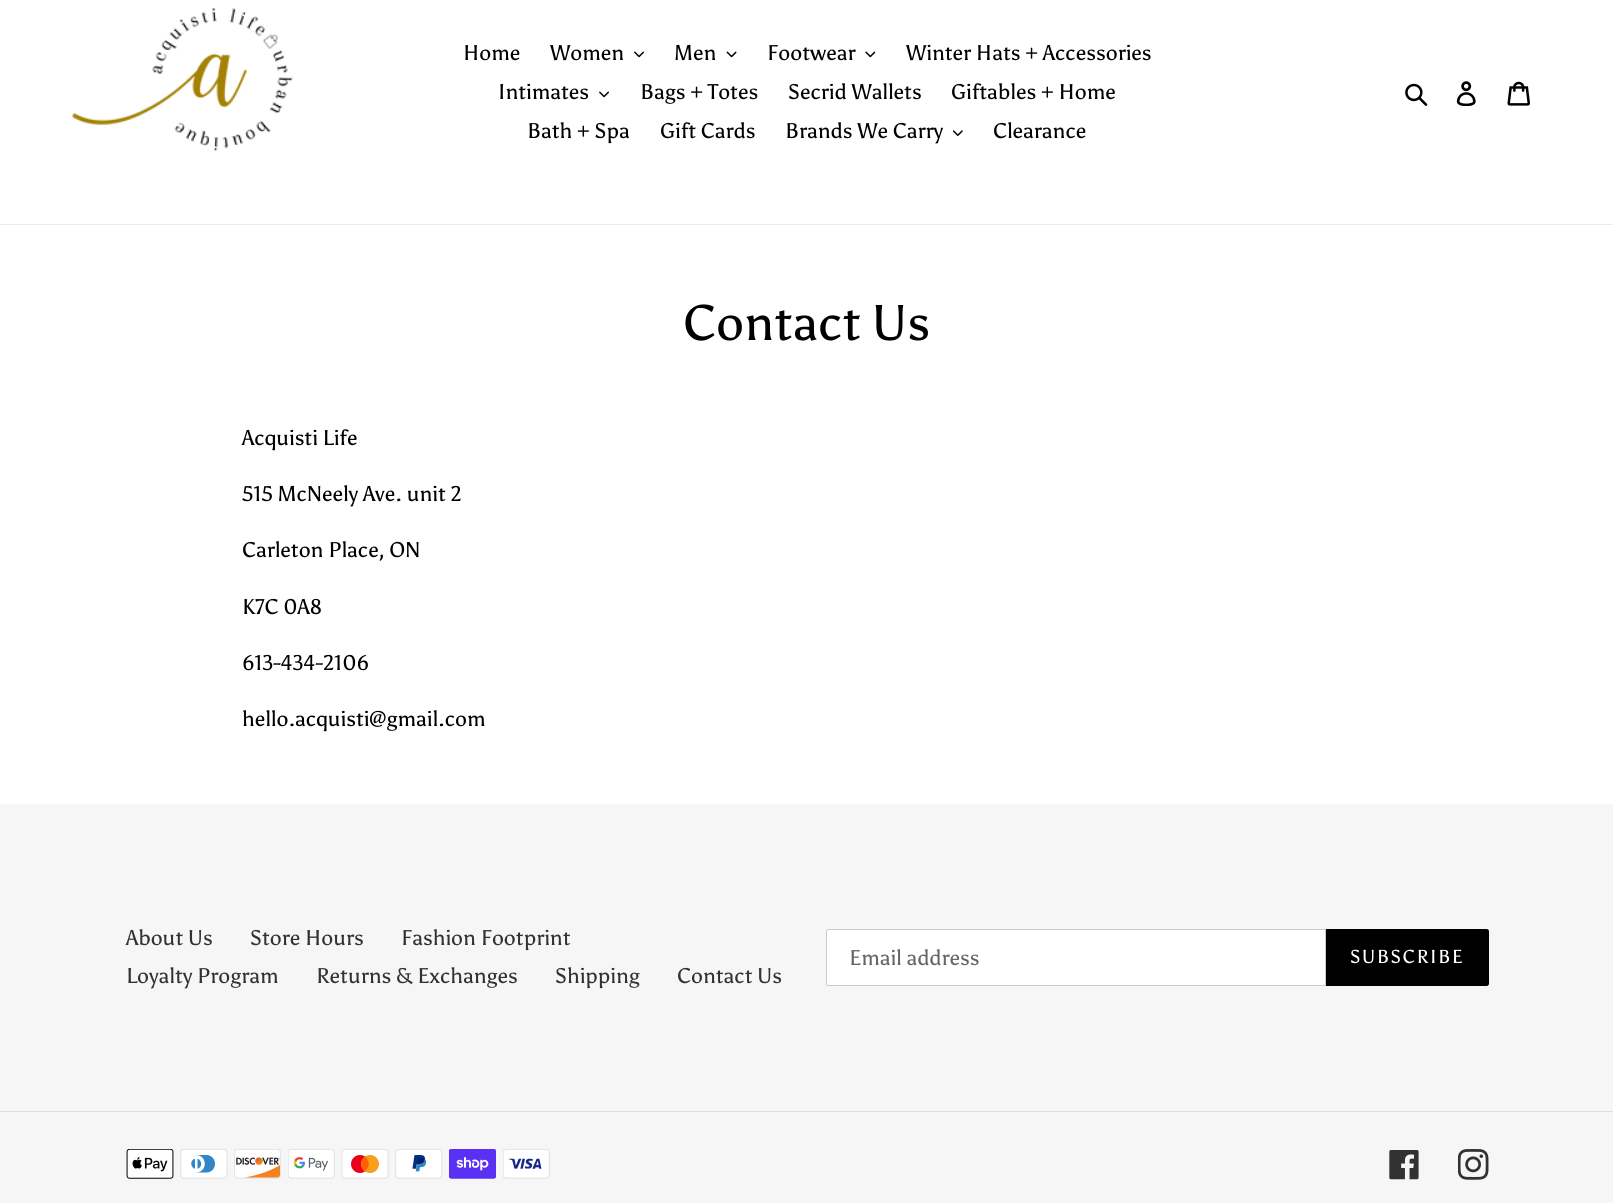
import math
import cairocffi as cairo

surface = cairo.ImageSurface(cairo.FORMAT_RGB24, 1613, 1203)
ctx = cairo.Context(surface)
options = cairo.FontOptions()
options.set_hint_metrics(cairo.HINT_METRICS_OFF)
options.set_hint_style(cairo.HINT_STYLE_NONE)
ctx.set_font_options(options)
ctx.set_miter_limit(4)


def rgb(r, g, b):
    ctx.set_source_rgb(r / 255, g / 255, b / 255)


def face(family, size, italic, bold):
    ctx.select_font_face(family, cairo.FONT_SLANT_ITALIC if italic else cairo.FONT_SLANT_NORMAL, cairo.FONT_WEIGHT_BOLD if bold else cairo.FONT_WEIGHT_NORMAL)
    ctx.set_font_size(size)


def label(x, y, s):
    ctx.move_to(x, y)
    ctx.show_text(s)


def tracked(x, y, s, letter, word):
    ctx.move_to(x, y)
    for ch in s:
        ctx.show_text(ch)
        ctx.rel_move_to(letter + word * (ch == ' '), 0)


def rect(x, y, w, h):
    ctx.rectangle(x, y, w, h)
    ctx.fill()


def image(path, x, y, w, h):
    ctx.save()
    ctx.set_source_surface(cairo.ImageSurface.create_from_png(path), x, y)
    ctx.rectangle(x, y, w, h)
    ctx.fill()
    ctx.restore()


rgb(255, 255, 255)
ctx.paint()
rgb(235, 235, 235)
rect(0, 224, 1613, 1)
image('image0.png', 72, 8, 221, 144)
face('Asul', 21.25, 0, 0)
rgb(0, 0, 0)
label(463, 60, 'Home')
label(550, 60, 'Women')
image('image1.png', 634, 51, 10, 7)
label(674, 60, 'Men')
image('image2.png', 726, 51, 11, 7)
label(767, 60, 'Footwear')
image('image3.png', 865, 51, 11, 7)
label(906, 60, 'Winter Hats + Accessories')
label(498, 99, 'Intimates')
image('image1.png', 599, 91, 10, 7)
label(640, 99, 'Bags + Totes')
label(788, 99, 'Secrid Wallets')
label(951, 99, 'Giftables + Home')
label(527, 138, 'Bath + Spa')
label(660, 138, 'Gift Cards')
label(785, 138, 'Brands We Carry')
image('image4.png', 953, 130, 10, 6)
label(993, 138, 'Clearance')
image('image5.png', 1405, 83, 23, 23)
image('image6.png', 1456, 81, 20, 25)
image('image7.png', 1507, 81, 23, 25)
face('Asul', 50, 0, 0)
label(683, 340, 'Contact Us')
face('Asul', 21.25, 0, 0)
label(242, 445, 'Acquisti Life')
label(242, 501, '515 McNeely Ave. unit 2')
label(242, 557, 'Carleton Place, ON')
label(242, 614, 'K7C 0A8')
label(242, 670, '613-434-2106')
label(242, 726, 'hello.acquisti@gmail.com')
rgb(246, 246, 246)
rect(0, 804, 1613, 399)
rgb(51, 50, 50)
label(126, 945, 'About Us')
label(250, 945, 'Store Hours')
label(401, 945, 'Fashion Footprint')
label(126, 983, 'Loyalty Program')
label(316, 983, 'Returns & Exchanges')
label(555, 983, 'Shipping')
label(677, 983, 'Contact Us')
rgb(255, 255, 255)
ctx.new_path()
ctx.move_to(828.5, 929.5)
ctx.line_to(1325.5, 929.5)
ctx.line_to(1325.5, 985.5)
ctx.line_to(828.5, 985.5)
ctx.curve_to(827.5, 985.5, 826.5, 984.5, 826.5, 983.5)
ctx.line_to(826.5, 931.5)
ctx.curve_to(826.5, 930.5, 827.5, 929.5, 828.5, 929.5)
ctx.close_path()
ctx.fill_preserve()
rgb(204, 204, 204)
ctx.set_line_width(1)
ctx.stroke()
rgb(102, 102, 102)
label(849, 965, 'Email address')
rgb(0, 0, 0)
ctx.new_path()
ctx.move_to(1326, 929)
ctx.line_to(1486.5, 929)
ctx.curve_to(1488, 929, 1489, 930, 1489, 931.5)
ctx.line_to(1489, 983.5)
ctx.curve_to(1489, 985, 1488, 986, 1486.5, 986)
ctx.line_to(1326, 986)
ctx.close_path()
ctx.fill()
face('Asul', 18.75, 0, 0)
rgb(255, 255, 255)
tracked(1350, 963, 'SUBSCRIBE', 1.5, 0)
rgb(221, 221, 221)
rect(0, 1111, 1613, 1)
image('image8.png', 126, 1149, 48, 30)
image('image9.png', 180, 1149, 48, 30)
image('image10.png', 234, 1149, 47, 30)
image('image11.png', 288, 1149, 47, 30)
image('image12.png', 341, 1149, 48, 30)
image('image13.png', 395, 1149, 48, 30)
image('image14.png', 449, 1149, 47, 30)
image('image15.png', 503, 1149, 47, 30)
image('image16.png', 1389, 1150, 30, 30)
image('image17.png', 1458, 1149, 31, 31)
surface.write_to_png('render.png')
